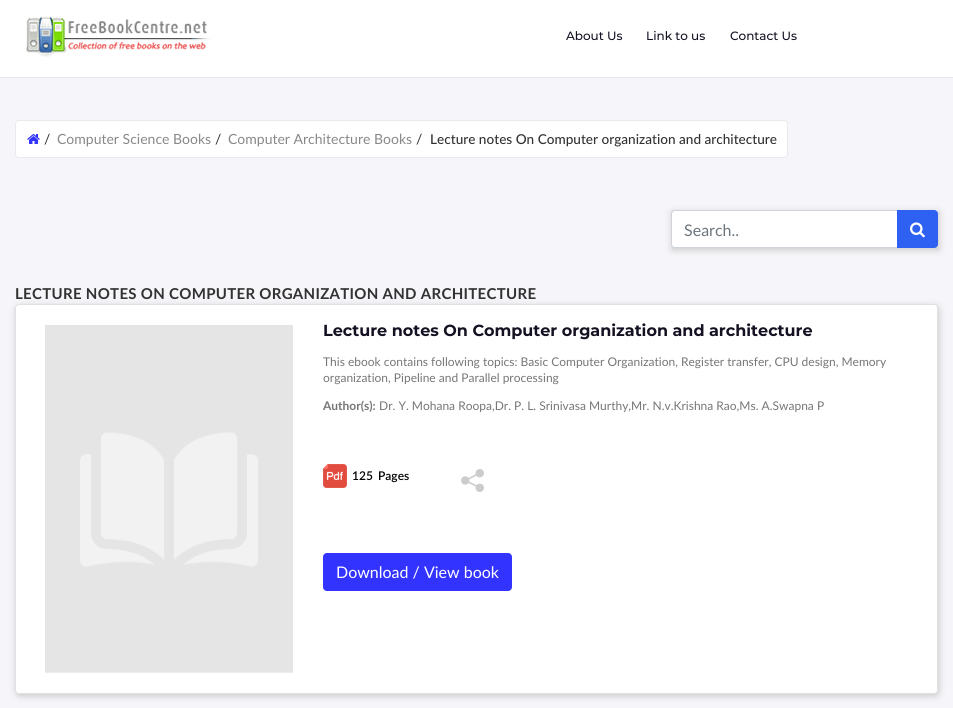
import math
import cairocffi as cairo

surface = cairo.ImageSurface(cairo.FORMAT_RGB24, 953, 708)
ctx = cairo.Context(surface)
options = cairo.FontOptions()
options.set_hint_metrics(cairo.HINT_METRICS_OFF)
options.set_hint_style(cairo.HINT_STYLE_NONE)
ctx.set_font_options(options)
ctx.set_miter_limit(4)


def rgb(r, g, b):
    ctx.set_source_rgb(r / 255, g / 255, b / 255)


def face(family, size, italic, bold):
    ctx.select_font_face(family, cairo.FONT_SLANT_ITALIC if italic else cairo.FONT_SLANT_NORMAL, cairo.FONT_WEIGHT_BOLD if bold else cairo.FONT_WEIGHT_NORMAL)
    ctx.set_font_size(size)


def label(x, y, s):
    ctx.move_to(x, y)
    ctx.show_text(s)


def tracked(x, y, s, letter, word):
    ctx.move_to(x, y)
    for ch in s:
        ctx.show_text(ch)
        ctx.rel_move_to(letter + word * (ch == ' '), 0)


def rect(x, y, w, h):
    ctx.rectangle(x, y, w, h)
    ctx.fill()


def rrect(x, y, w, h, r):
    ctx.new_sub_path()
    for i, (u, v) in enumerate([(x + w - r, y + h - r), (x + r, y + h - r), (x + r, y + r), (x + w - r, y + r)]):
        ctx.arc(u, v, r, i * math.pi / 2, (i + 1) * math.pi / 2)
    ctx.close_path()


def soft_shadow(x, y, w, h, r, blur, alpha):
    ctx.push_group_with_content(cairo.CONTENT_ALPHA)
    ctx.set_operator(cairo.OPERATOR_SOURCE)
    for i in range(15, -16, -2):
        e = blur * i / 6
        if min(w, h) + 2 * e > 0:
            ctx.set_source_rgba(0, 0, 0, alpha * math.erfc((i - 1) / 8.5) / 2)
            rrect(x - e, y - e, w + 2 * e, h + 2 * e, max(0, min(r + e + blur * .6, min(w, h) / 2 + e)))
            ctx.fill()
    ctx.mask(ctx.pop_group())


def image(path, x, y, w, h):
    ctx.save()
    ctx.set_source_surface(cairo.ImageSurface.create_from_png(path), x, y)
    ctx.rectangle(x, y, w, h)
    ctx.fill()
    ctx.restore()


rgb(246, 245, 249)
ctx.paint()
rgb(255, 255, 255)
rect(0, 0, 953, 77)
rgb(232, 232, 232)
rect(0, 77, 953, 1)
image('image0.png', 26, 17, 186, 40)
face('Montserrat Medium', 12, 0, 0)
rgb(21, 17, 34)
label(566, 40, 'About Us')
label(646, 40, 'Link to us')
label(730, 40, 'Contact Us')
rgb(255, 255, 255)
rrect(15.5, 120.5, 772, 37, 3.5)
ctx.fill_preserve()
rgb(234, 233, 237)
ctx.set_line_width(1)
ctx.stroke()
image('image1.png', 27, 134, 13, 10)
face('Lato', 14, 0, 0)
rgb(50, 50, 50)
label(44, 144, '/')
rgb(136, 136, 136)
label(57, 144, 'Computer Science Books')
rgb(50, 50, 50)
label(215, 144, '/')
rgb(136, 136, 136)
label(228, 144, 'Computer Architecture Books')
rgb(50, 50, 50)
label(416, 144, '/')
face('Lato Medium', 13.6, 0, 0)
label(430, 144, 'Lecture notes On Computer organization and architecture')
rgb(157, 157, 157)
soft_shadow(672, 212, 267, 38, 0, 3.5, 0.5)
rgb(255, 255, 255)
ctx.new_path()
ctx.move_to(675, 210.5)
ctx.line_to(897.5, 210.5)
ctx.line_to(897.5, 247.5)
ctx.line_to(675, 247.5)
ctx.curve_to(673, 247.5, 671.5, 246, 671.5, 244)
ctx.line_to(671.5, 214)
ctx.curve_to(671.5, 212, 673, 210.5, 675, 210.5)
ctx.close_path()
ctx.fill_preserve()
rgb(206, 212, 218)
ctx.stroke()
face('Lato', 16, 0, 0)
rgb(108, 117, 125)
label(684, 236, 'Search..')
rgb(46, 97, 242)
ctx.new_path()
ctx.move_to(897.5, 210.5)
ctx.line_to(934, 210.5)
ctx.curve_to(936, 210.5, 937.5, 212, 937.5, 214)
ctx.line_to(937.5, 244)
ctx.curve_to(937.5, 246, 936, 247.5, 934, 247.5)
ctx.line_to(897.5, 247.5)
ctx.close_path()
ctx.fill_preserve()
ctx.stroke()
image('image2.png', 910, 222, 15, 16)
face('Lato', 15, 0, 1)
rgb(50, 50, 50)
tracked(15, 299, 'LECTURE NOTES ON COMPUTER ORGANIZATION AND ARCHITECTURE', 0.3, 0)
rgb(157, 157, 157)
soft_shadow(16, 306, 923, 390, 4, 3.5, 0.5)
rgb(255, 255, 255)
rrect(15, 304, 923, 390, 4)
ctx.fill()
rrect(15.5, 304.5, 922, 389, 3.5)
ctx.set_source_rgba(0, 0, 0, 0.12)
ctx.stroke()
image('image3.png', 45, 325, 248, 348)
face('Montserrat', 16, 0, 1)
rgb(21, 17, 34)
label(323, 336, 'Lecture notes On Computer organization and architecture')
face('Lato', 12, 0, 0)
rgb(118, 118, 120)
label(323, 366, 'This ebook contains following topics: Basic Computer Organization, Register transfer, CPU design, Memory')
label(323, 382, 'organization, Pipeline and Parallel processing')
face('Lato', 12, 0, 1)
label(323, 410, 'Author(s):')
face('Lato', 12, 0, 0)
label(379, 410, 'Dr. Y. Mohana Roopa,Dr. P. L. Srinivasa Murthy,Mr. N.v.Krishna Rao,Ms. A.Swapna P')
image('image4.png', 323, 464, 24, 24)
face('Lato SemiBold', 12, 0, 0)
rgb(0, 0, 0)
label(352, 480, '125')
label(378, 480, 'Pages')
image('image5.png', 461, 469, 23, 23)
rgb(51, 51, 255)
rrect(323, 553, 189, 38, 4)
ctx.fill()
face('Lato', 16, 0, 0)
rgb(255, 255, 255)
label(336, 578, 'Download / View book')
surface.write_to_png('render.png')
